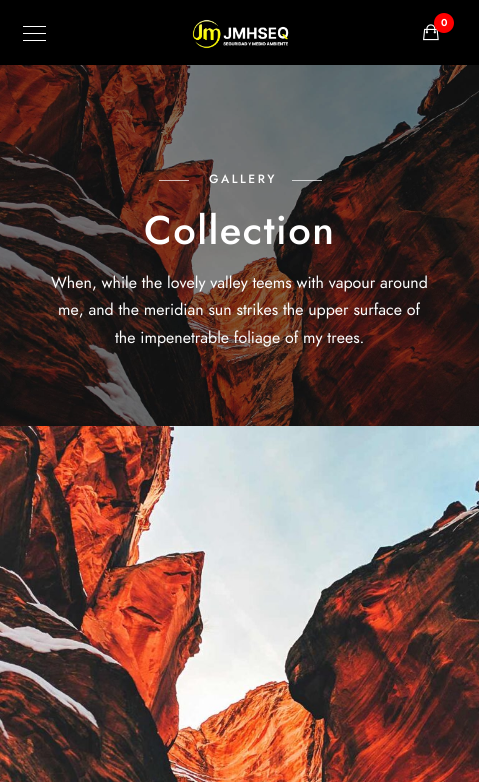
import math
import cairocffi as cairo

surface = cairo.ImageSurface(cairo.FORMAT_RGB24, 479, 782)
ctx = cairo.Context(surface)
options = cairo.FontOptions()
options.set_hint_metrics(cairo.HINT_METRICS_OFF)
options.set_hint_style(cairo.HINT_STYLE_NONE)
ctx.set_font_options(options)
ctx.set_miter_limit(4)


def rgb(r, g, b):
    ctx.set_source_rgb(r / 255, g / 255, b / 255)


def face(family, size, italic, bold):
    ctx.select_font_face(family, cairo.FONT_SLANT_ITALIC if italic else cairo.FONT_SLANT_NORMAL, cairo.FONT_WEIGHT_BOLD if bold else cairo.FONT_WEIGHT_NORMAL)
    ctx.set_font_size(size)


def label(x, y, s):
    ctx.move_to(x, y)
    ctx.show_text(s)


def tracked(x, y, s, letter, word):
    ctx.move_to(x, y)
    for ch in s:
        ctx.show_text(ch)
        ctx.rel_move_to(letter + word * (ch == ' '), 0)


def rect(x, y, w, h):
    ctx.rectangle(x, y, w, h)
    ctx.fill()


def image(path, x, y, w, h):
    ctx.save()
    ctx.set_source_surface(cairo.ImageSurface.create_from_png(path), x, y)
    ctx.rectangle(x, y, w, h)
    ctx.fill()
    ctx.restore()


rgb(255, 255, 255)
ctx.paint()
rgb(0, 0, 0)
rect(0, 0, 479, 65)
image('image0.png', 192, 19, 97, 30)
image('image1.png', 423, 24, 16, 17)
rgb(255, 0, 0)
ctx.arc(444, 23, 10, 0, 2 * math.pi)
ctx.fill()
face('Jost SemiBold', 10, 0, 0)
rgb(255, 255, 255)
label(441, 26, '0')
rect(23, 33, 23, 1)
rect(23, 26, 23, 1)
rect(23, 40, 23, 1)
image('image2.png', 0, 65, 479, 361)
ctx.set_source_rgba(1, 1, 1, 0.7)
rect(159, 180, 30, 1)
face('Jost Medium', 12, 0, 0)
rgb(255, 255, 255)
tracked(209, 183, 'GALLERY', 2.5, 0)
ctx.set_source_rgba(1, 1, 1, 0.7)
rect(292, 180, 30, 1)
face('Jost Medium', 40, 0, 0)
rgb(255, 255, 255)
tracked(144, 244, 'Collection', 1.5, 0)
face('Jost', 16, 0, 0)
label(51, 288, 'When, while the lovely valley teems with vapour around')
label(58, 315, 'me, and the meridian sun strikes the upper surface of')
label(115, 343, 'the impenetrable foliage of my trees.')
image('image3.png', 0, 426, 479, 356)
surface.write_to_png('render.png')
